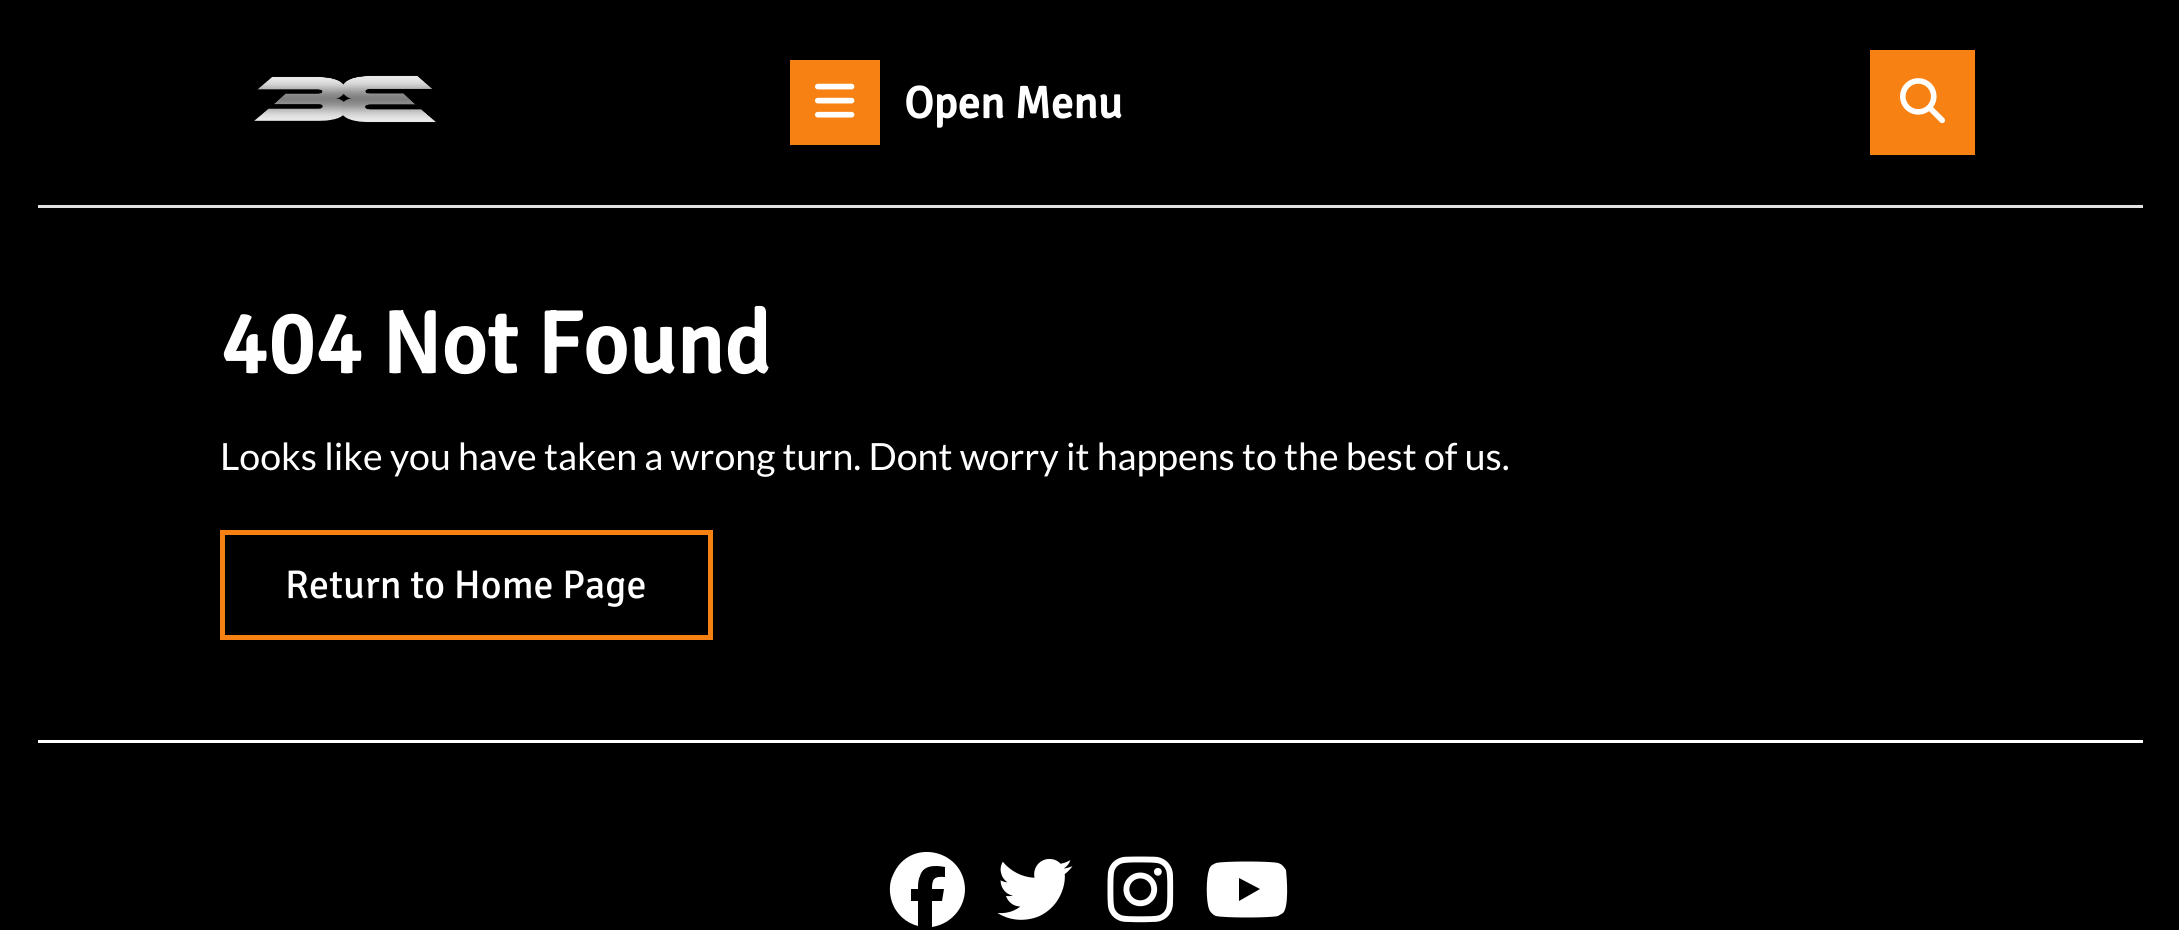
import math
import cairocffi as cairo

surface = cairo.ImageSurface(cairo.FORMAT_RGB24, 2179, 930)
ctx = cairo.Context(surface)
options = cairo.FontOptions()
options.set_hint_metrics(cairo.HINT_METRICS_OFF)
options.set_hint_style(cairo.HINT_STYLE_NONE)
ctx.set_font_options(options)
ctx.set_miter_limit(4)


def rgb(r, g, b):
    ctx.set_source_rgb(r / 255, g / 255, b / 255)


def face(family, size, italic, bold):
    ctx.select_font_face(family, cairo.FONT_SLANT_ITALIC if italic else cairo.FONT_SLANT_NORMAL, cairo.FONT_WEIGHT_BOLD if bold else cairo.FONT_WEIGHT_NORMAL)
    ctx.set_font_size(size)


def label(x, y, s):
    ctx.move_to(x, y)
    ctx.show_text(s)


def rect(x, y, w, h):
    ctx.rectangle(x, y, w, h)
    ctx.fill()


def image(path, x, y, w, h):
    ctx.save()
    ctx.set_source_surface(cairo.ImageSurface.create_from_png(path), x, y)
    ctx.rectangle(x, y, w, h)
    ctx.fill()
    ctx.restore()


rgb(0, 0, 0)
ctx.paint()
rgb(226, 226, 226)
rect(38, 205, 2105, 3)
image('image0.png', 254, 75, 182, 48)
rgb(247, 129, 18)
rect(790, 60, 90, 85)
image('image1.png', 815, 83, 40, 35)
face('Signika', 45, 0, 1)
rgb(255, 255, 255)
label(904, 118, 'Open Menu')
rgb(247, 129, 18)
rect(1870, 50, 105, 105)
image('image2.png', 1900, 78, 45, 46)
face('Signika', 87.75, 0, 1)
rgb(255, 255, 255)
label(220, 373, '404 Not Found')
face('Lato', 37.5, 0, 0)
label(220, 470, 'Looks like you have taken a wrong turn. Dont worry it happens to the best of us.')
ctx.rectangle(222.5, 532.5, 488, 105)
rgb(247, 129, 18)
ctx.set_line_width(5)
ctx.stroke()
face('Signika Light', 40, 0, 0)
rgb(255, 255, 255)
label(285, 598, 'Return to Home Page')
rect(38, 740, 2105, 3)
ctx.new_path()
ctx.move_to(965, 889)
ctx.curve_to(964, 849, 909, 837, 893, 875)
ctx.curve_to(889, 883, 889, 893, 892, 902)
ctx.curve_to(896, 914, 906, 923, 918, 926)
ctx.line_to(918, 901)
ctx.line_to(911, 901)
ctx.line_to(911, 889)
ctx.line_to(918, 889)
ctx.curve_to(918, 885, 918, 880, 920, 876)
ctx.curve_to(923, 865, 935, 865, 945, 867)
ctx.line_to(945, 877)
ctx.curve_to(934, 876, 932, 879, 932, 889)
ctx.line_to(944, 889)
ctx.line_to(942, 901)
ctx.line_to(932, 901)
ctx.line_to(932, 927)
ctx.curve_to(951, 924, 965, 908, 965, 889)
ctx.close_path()
ctx.fill()
image('image3.png', 997, 858, 76, 62)
image('image4.png', 1107, 856, 67, 67)
ctx.new_path()
ctx.move_to(1286, 870)
ctx.curve_to(1284, 867, 1282, 864, 1278, 863)
ctx.curve_to(1271, 861, 1224, 861, 1216, 863)
ctx.line_to(1212, 865)
ctx.curve_to(1211, 866, 1209, 868, 1209, 870)
ctx.curve_to(1206, 878, 1206, 901, 1209, 909)
ctx.curve_to(1210, 912, 1213, 915, 1216, 916)
ctx.curve_to(1224, 918, 1270, 918, 1278, 916)
ctx.line_to(1283, 913)
ctx.curve_to(1289, 907, 1287, 879, 1286, 870)
ctx.close_path()
ctx.move_to(1239, 901)
ctx.line_to(1239, 878)
ctx.line_to(1239, 901)
ctx.line_to(1239, 878)
ctx.line_to(1260, 889)
ctx.close_path()
ctx.fill()
surface.write_to_png('render.png')
